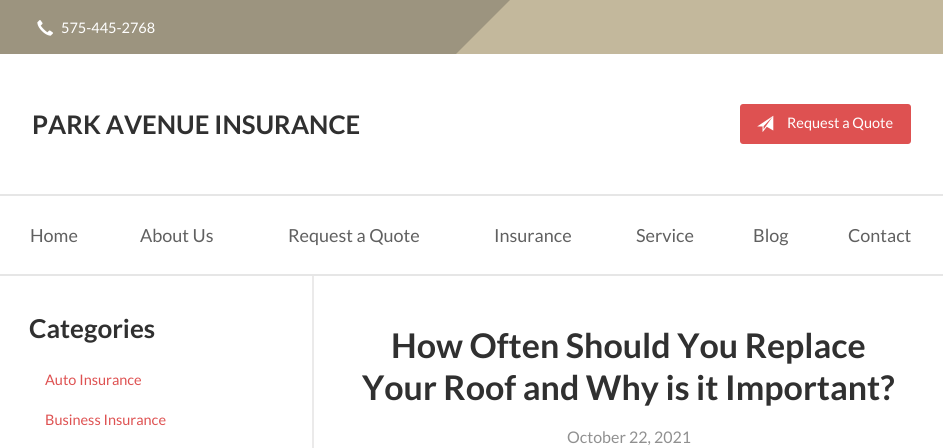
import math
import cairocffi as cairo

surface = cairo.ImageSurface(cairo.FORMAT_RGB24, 943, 448)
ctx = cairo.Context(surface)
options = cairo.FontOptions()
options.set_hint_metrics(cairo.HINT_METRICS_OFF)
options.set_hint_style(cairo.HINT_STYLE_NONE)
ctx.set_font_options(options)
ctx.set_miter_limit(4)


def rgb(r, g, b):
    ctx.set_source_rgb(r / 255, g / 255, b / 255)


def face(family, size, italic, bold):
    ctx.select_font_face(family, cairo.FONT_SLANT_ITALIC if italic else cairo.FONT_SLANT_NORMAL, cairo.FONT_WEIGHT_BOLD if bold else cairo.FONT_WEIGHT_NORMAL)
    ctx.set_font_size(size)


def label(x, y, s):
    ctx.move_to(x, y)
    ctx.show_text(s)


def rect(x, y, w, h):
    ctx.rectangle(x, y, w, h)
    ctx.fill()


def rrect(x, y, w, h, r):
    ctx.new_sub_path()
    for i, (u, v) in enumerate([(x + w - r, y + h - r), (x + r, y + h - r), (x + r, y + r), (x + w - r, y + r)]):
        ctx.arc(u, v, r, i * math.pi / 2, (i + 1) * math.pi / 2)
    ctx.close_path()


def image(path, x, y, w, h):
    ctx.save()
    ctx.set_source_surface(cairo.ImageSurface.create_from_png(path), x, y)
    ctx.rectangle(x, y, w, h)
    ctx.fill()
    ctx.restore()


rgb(255, 255, 255)
ctx.paint()
rgb(156, 148, 127)
rect(0, 0, 510, 54)
image('image0.png', 37, 20, 16, 16)
face('Lato', 14.5, 0, 0)
rgb(255, 255, 255)
label(61, 33, '575-445-2768')
ctx.save()
ctx.rectangle(0, 0, 943, 54)
ctx.clip()
rgb(195, 184, 156)
ctx.new_path()
ctx.move_to(10, 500)
ctx.line_to(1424, -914)
ctx.line_to(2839, 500)
ctx.line_to(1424, 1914)
ctx.close_path()
ctx.fill()
ctx.restore()
rgb(230, 230, 230)
rect(0, 194, 943, 2)
face('Lato', 25.6, 0, 1)
rgb(48, 48, 48)
label(32, 134, 'PARK AVENUE INSURANCE')
rgb(222, 81, 81)
rrect(740, 104, 171, 40, 3)
ctx.fill()
image('image1.png', 757, 115, 17, 17)
face('Lato', 14.5, 0, 0)
rgb(255, 255, 255)
label(787, 128, 'Request a Quote')
rgb(230, 230, 230)
rect(0, 274, 943, 2)
face('Lato', 18, 0, 0)
rgb(96, 96, 96)
label(30, 242, 'Home')
label(140, 242, 'About Us')
label(288, 242, 'Request a Quote')
label(494, 242, 'Insurance')
label(636, 242, 'Service')
label(753, 242, 'Blog')
label(848, 242, 'Contact')
rgb(235, 234, 234)
rect(312, 276, 2, 172)
face('Lato', 26, 0, 1)
rgb(48, 48, 48)
label(29, 338, 'Categories')
face('Lato', 14.5, 0, 0)
rgb(222, 81, 81)
label(45, 385, 'Auto Insurance')
label(45, 425, 'Business Insurance')
face('Lato', 34, 0, 1)
rgb(48, 48, 48)
label(391, 358, 'How Often Should You Replace')
label(362, 400, 'Your Roof and Why is it Important?')
face('Lato', 16, 0, 0)
rgb(144, 144, 144)
label(567, 443, 'October 22, 2021')
surface.write_to_png('render.png')
